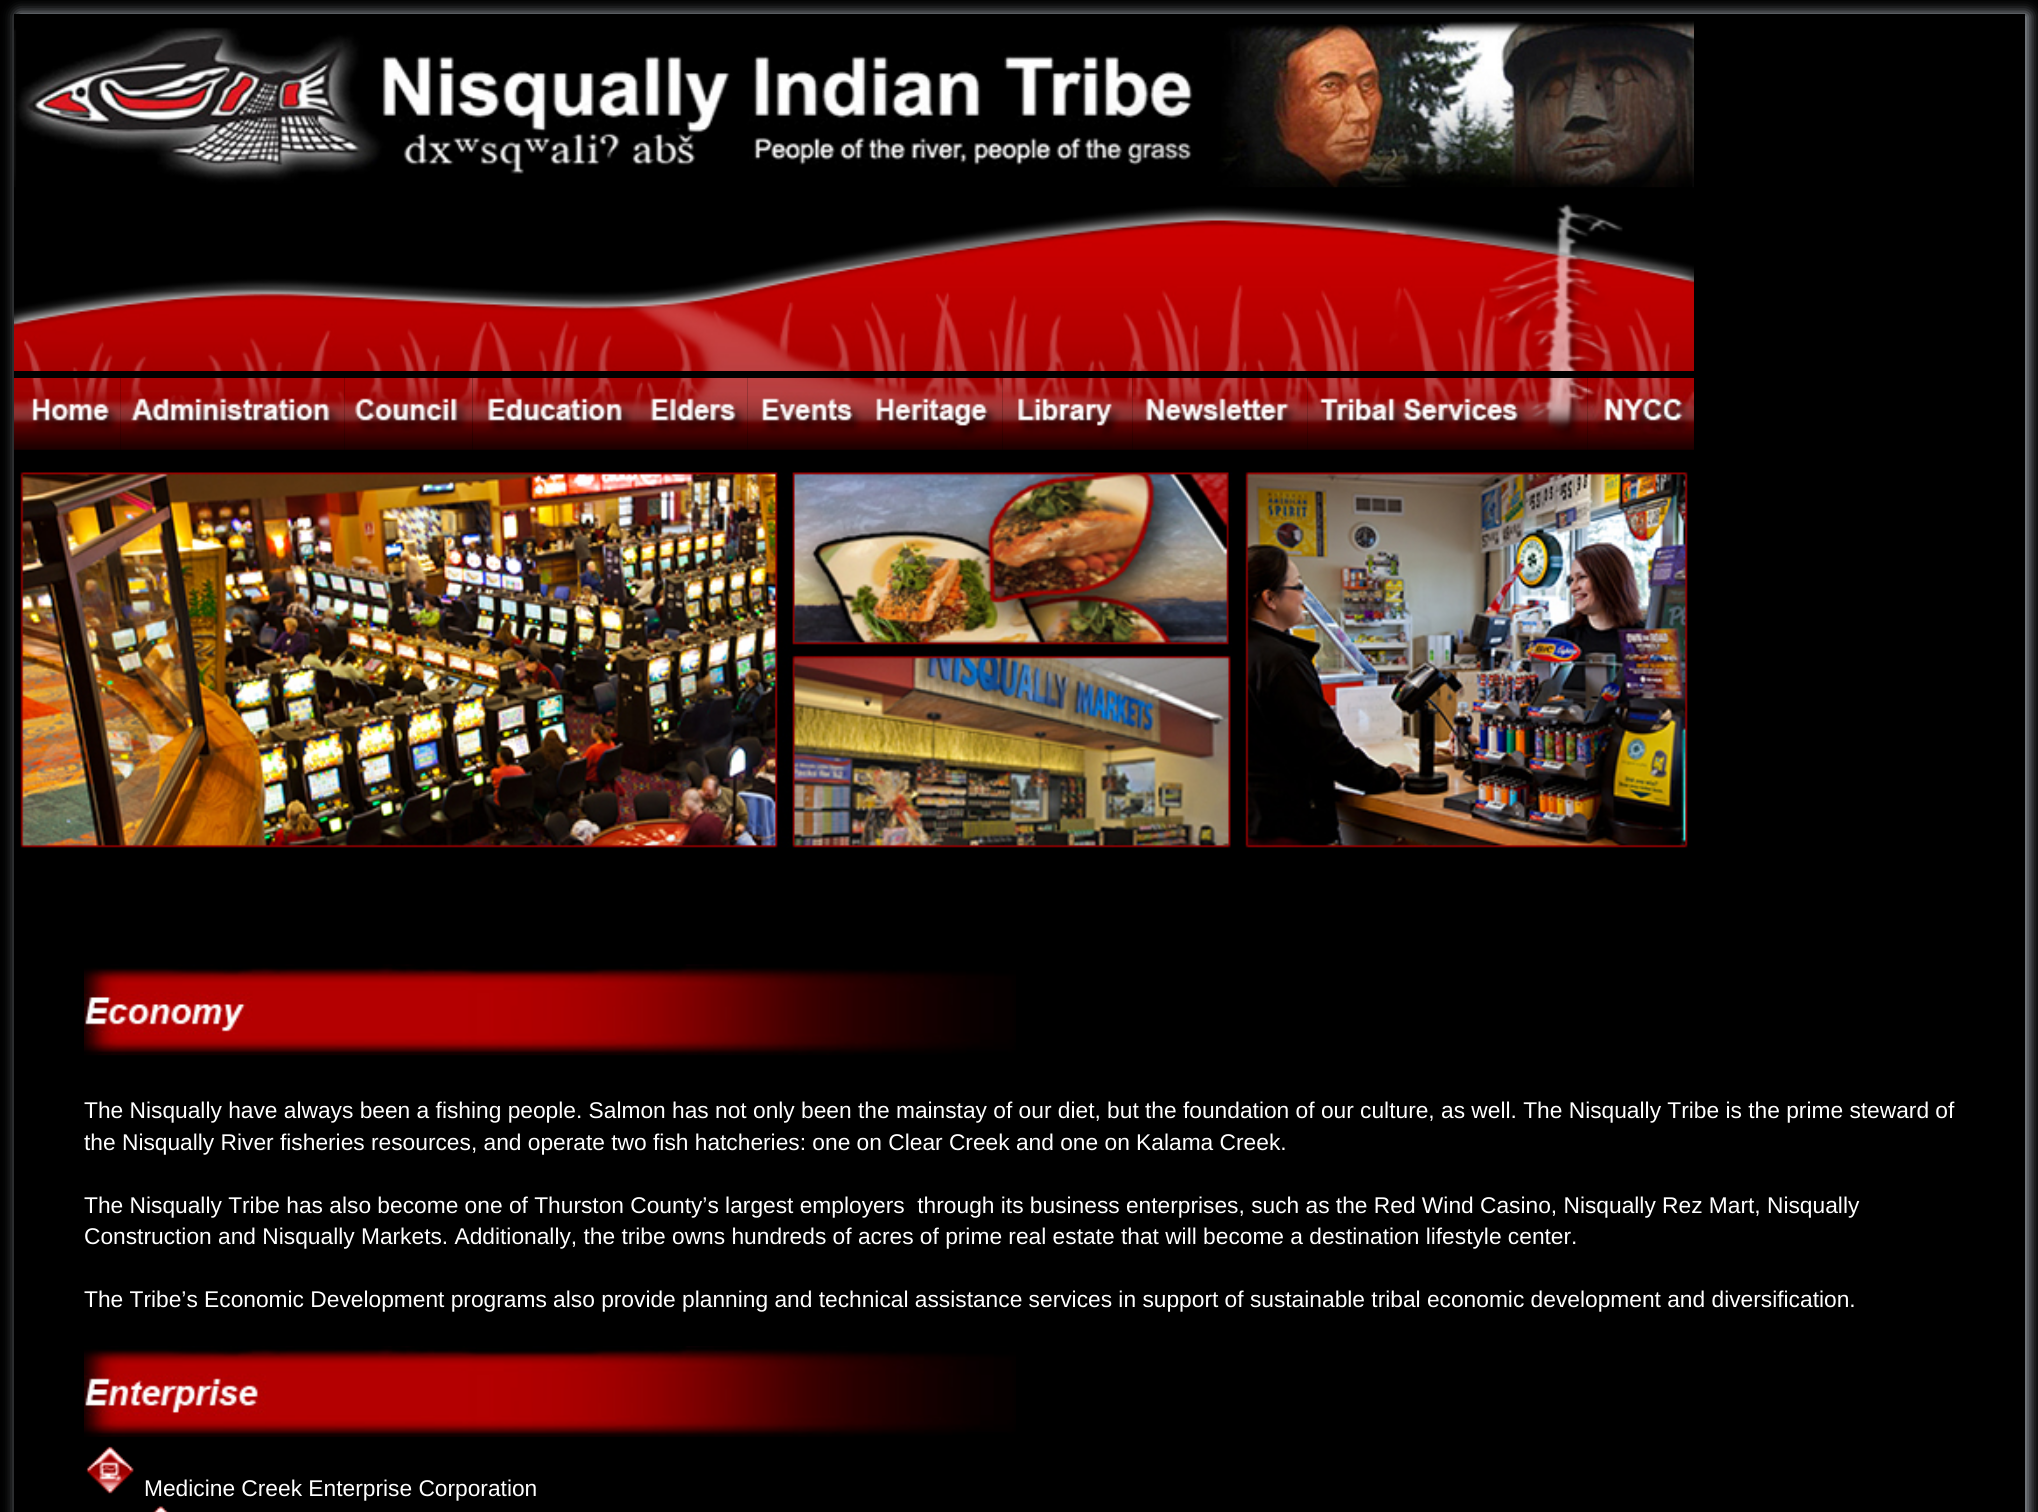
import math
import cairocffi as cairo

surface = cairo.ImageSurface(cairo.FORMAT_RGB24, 2038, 1512)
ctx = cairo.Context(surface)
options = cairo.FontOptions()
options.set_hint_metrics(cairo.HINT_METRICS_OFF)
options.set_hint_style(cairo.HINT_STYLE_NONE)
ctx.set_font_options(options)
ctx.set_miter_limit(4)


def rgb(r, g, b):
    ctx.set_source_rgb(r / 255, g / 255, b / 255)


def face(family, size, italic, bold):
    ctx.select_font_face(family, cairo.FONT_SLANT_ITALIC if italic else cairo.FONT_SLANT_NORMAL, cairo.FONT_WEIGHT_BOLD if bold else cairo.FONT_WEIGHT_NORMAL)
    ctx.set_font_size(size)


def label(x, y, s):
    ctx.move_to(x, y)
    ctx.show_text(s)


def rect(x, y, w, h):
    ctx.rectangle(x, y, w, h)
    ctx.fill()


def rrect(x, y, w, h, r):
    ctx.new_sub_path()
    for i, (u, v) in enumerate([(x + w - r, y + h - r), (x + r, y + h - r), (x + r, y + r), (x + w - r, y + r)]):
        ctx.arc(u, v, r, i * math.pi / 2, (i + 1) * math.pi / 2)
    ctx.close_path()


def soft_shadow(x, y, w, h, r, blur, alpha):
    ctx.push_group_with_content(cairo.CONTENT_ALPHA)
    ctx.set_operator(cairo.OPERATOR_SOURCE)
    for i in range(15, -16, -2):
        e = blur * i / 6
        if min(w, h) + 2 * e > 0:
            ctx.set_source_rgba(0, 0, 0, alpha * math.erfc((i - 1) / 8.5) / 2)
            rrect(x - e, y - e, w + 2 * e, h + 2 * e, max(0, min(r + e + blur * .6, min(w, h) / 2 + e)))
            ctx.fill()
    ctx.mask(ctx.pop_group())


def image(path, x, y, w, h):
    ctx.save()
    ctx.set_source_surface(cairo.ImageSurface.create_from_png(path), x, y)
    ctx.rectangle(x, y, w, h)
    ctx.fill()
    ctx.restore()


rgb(0, 0, 0)
ctx.paint()
rgb(178, 185, 193)
soft_shadow(18, 14, 2010, 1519, 0, 7, 1)
rgb(0, 0, 0)
rect(14, 14, 2011, 1498)
image('image0.png', 14, 21, 1680, 167)
image('image1.png', 14, 204, 1680, 167)
image('image2.png', 14, 378, 107, 72)
image('image3.png', 120, 378, 225, 72)
image('image4.png', 344, 378, 129, 72)
image('image5.png', 472, 378, 165, 72)
image('image6.png', 637, 378, 111, 72)
image('image7.png', 747, 378, 107, 72)
image('image8.png', 854, 378, 149, 72)
image('image9.png', 1002, 378, 131, 72)
image('image10.png', 1132, 378, 176, 72)
image('image11.png', 1307, 378, 281, 72)
image('image12.png', 1587, 378, 107, 72)
image('image13.png', 20, 472, 1668, 376)
image('image14.png', 84, 964, 932, 92)
face('Liberation Sans', 22.75, 0, 0)
rgb(255, 255, 255)
label(84, 1118, 'The Nisqually have always been a fishing people. Salmon has not only been the mainstay of our diet, but the foundation of our culture, as well. The Nisqually Tribe is the prime steward of')
label(84, 1150, 'the Nisqually River fisheries resources, and operate two fish hatcheries: one on Clear Creek and one on Kalama Creek.')
label(84, 1213, 'The Nisqually Tribe has also become one of Thurston County’s largest employers  through its business enterprises, such as the Red Wind Casino, Nisqually Rez Mart, Nisqually')
label(84, 1244, 'Construction and Nisqually Markets. Additionally, the tribe owns hundreds of acres of prime real estate that will become a destination lifestyle center.')
label(84, 1307, 'The Tribe’s Economic Development programs also provide planning and technical assistance services in support of sustainable tribal economic development and diversification.')
image('image15.png', 84, 1346, 932, 91)
image('image16.png', 85, 1446, 49, 48)
label(144, 1496, 'Medicine Creek Enterprise Corporation')
image('image17.png', 152, 1506, 17, 6)
surface.write_to_png('render.png')
